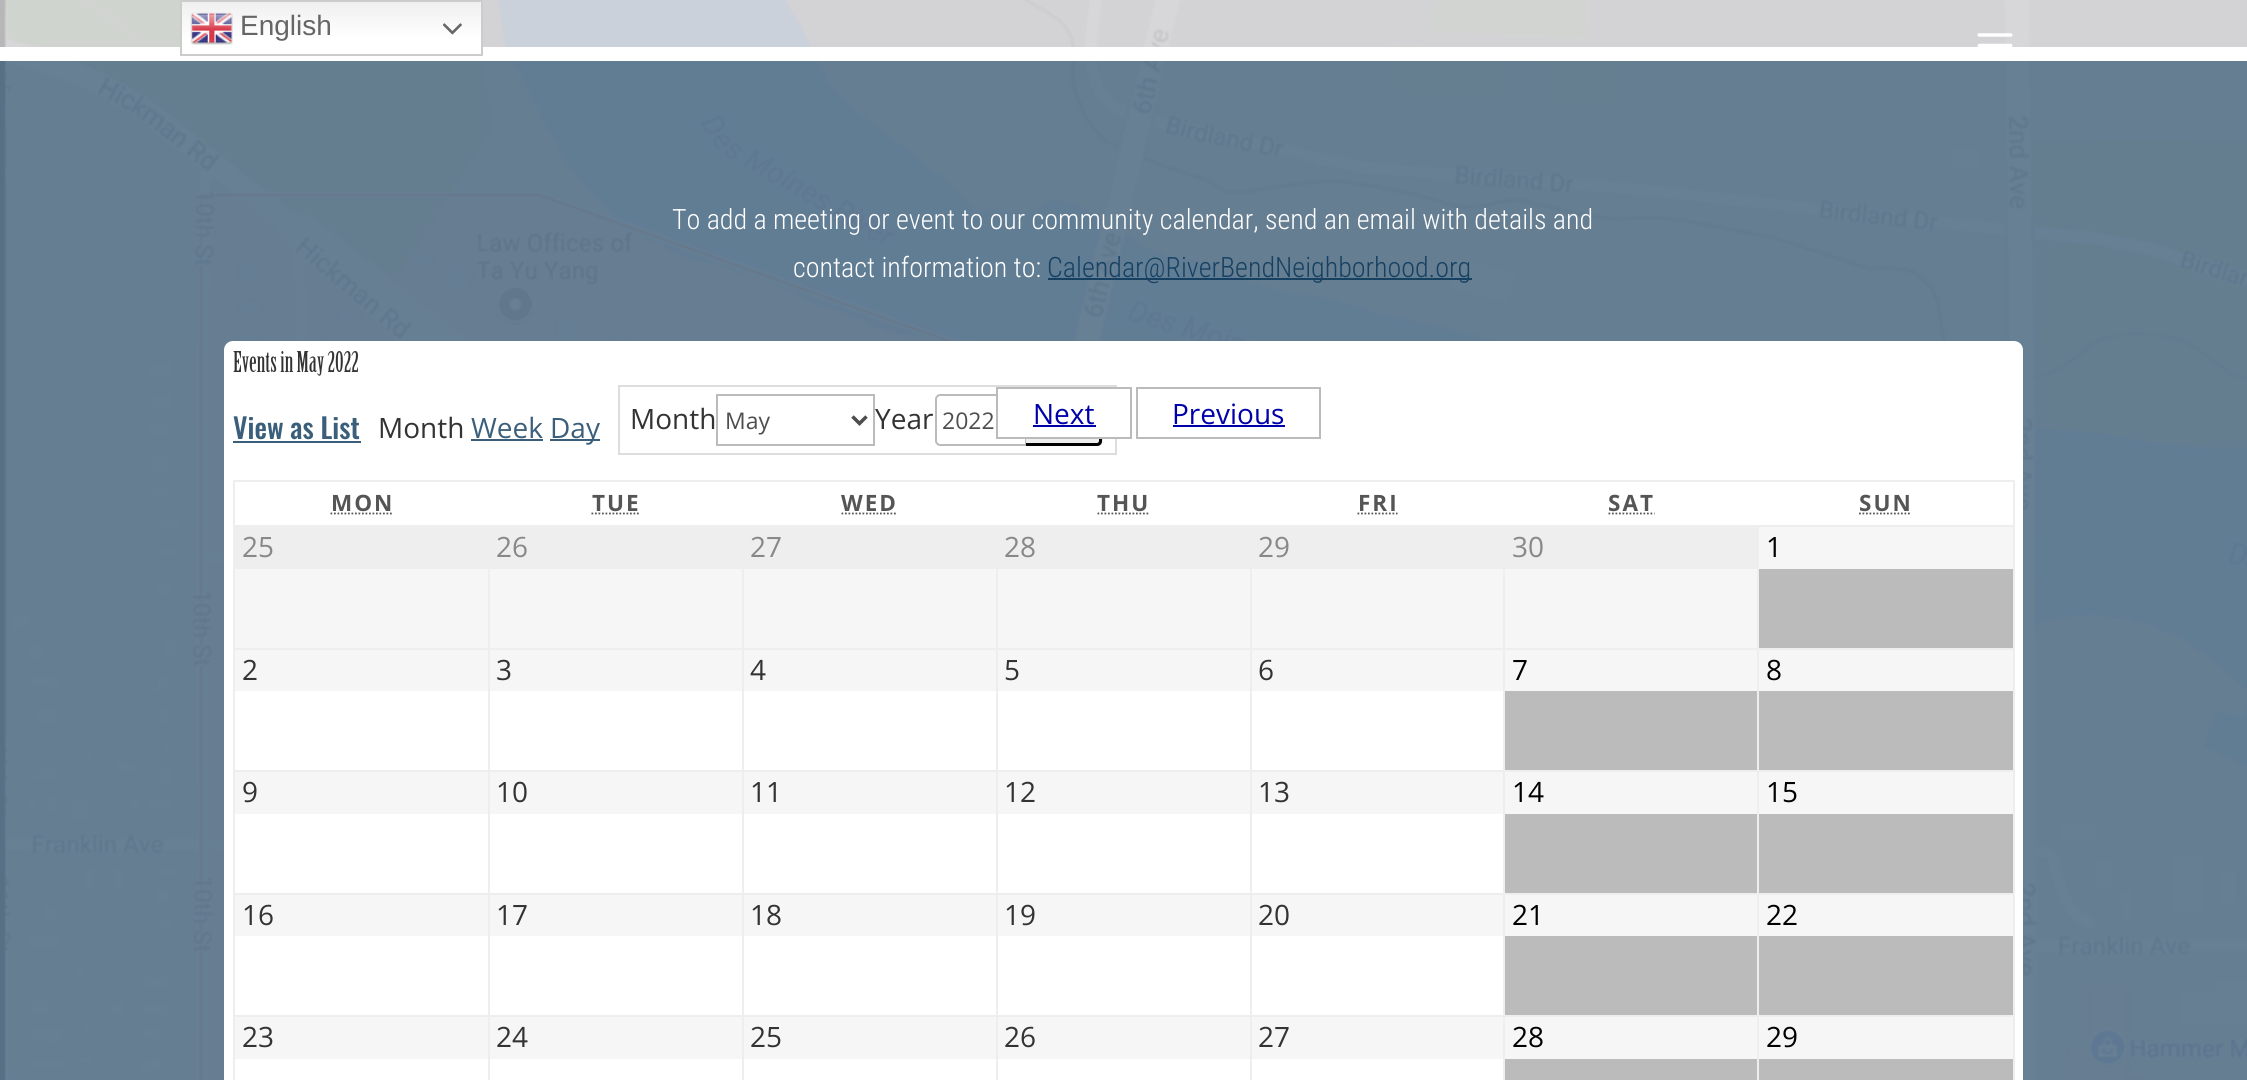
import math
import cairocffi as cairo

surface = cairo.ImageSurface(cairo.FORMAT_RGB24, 2247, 1080)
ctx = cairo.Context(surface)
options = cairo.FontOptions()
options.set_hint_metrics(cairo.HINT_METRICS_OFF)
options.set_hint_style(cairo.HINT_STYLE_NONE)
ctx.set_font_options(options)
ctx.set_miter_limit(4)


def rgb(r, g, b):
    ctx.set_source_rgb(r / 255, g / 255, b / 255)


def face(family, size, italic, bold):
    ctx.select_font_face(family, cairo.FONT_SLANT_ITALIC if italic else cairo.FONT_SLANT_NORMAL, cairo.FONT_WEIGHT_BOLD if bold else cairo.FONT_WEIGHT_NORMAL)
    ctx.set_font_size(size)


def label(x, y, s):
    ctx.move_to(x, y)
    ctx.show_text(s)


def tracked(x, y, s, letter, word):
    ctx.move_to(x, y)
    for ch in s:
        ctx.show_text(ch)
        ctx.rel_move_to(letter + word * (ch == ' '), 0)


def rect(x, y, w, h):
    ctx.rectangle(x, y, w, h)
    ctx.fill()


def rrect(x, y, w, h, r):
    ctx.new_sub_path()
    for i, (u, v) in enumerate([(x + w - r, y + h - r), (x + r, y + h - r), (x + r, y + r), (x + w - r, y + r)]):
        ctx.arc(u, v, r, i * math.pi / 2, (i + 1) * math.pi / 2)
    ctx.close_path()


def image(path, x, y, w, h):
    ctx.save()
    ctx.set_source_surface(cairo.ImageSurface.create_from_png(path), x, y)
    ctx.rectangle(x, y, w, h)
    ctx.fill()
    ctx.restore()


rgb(255, 255, 255)
ctx.paint()
image('image0.png', 0, 0, 2247, 1080)
gradient = cairo.LinearGradient(332, 0, 332, 56)
gradient.add_color_stop_rgba(0, 0.937, 0.937, 0.937, 1)
gradient.add_color_stop_rgba(0.7, 1, 1, 1, 1)
ctx.set_source(gradient)
rect(182, 2, 299, 45)
rgb(255, 255, 255)
rect(0, 47, 2247, 14)
ctx.rectangle(181, 1, 301, 54)
rgb(204, 204, 204)
ctx.stroke()
image('image1.png', 190, 12, 43, 33)
face('Liberation Sans', 28, 0, 0)
rgb(102, 102, 102)
label(240, 35, 'English')
image('image2.png', 443, 23, 19, 12)
image('image3.png', 1977, 33, 36, 14)
face('Roboto Condensed Light', 28, 0, 0)
rgb(255, 255, 255)
label(672, 229, 'To add a meeting or event to our community calendar, send an email with details and')
label(793, 277, 'contact information to:')
ctx.set_source_rgba(0, 0.184, 0.329, 0.77)
rect(1048, 278, 424, 2)
rgb(23, 65, 98)
label(1047, 277, 'Calendar@RiverBendNeighborhood.org')
rgb(255, 255, 255)
rrect(224, 341, 1799, 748, 9)
ctx.fill()
face('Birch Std', 28, 0, 0)
rgb(51, 51, 51)
label(233, 372, 'Events in May 2022')
face('Oswald Medium', 28, 0, 0)
rgb(59, 95, 123)
label(233, 439, 'View as List')
rect(233, 441, 128, 2)
face('Open Sans', 28, 0, 0)
rgb(51, 51, 51)
label(378, 438, 'Month')
rgb(59, 95, 123)
label(471, 438, 'Week')
rect(471, 439, 72, 2)
rect(550, 439, 50, 2)
label(550, 438, 'Day')
ctx.rectangle(619, 386, 497, 68)
rgb(221, 221, 221)
ctx.stroke()
rgb(51, 51, 51)
label(630, 429, 'Month')
ctx.rectangle(717, 395, 157, 50)
rgb(187, 187, 187)
ctx.stroke()
ctx.new_path()
ctx.move_to(852.5, 416.5)
ctx.line_to(859.5, 423.5)
ctx.line_to(866.5, 416.5)
rgb(78, 78, 78)
ctx.set_line_width(3.5)
ctx.stroke()
face('Open Sans', 23, 0, 0)
label(725, 429, 'May')
face('Open Sans', 28, 0, 0)
rgb(51, 51, 51)
label(875, 429, 'Year')
ctx.new_path()
ctx.move_to(940, 395)
ctx.line_to(1026, 395)
ctx.line_to(1026, 445)
ctx.line_to(940, 445)
ctx.curve_to(938, 445, 936, 443, 936, 441)
ctx.line_to(936, 399)
ctx.curve_to(936, 397, 938, 395, 940, 395)
ctx.close_path()
rgb(187, 187, 187)
ctx.set_line_width(2)
ctx.stroke()
face('Open Sans', 23, 0, 0)
rgb(78, 78, 78)
label(942, 429, '2022')
rgb(239, 239, 239)
ctx.new_path()
ctx.move_to(1026, 394)
ctx.line_to(1098, 394)
ctx.curve_to(1101, 394, 1103, 396, 1103, 399)
ctx.line_to(1103, 441)
ctx.curve_to(1103, 444, 1101, 446, 1098, 446)
ctx.line_to(1026, 446)
ctx.close_path()
ctx.fill()
rgb(0, 0, 0)
ctx.set_fill_rule(cairo.FILL_RULE_EVEN_ODD)
ctx.new_path()
ctx.move_to(1026, 394)
ctx.line_to(1097, 394)
ctx.curve_to(1100, 394, 1102, 396, 1102, 399)
ctx.line_to(1102, 441)
ctx.curve_to(1102, 444, 1100, 446, 1097, 446)
ctx.line_to(1026, 446)
ctx.close_path()
ctx.move_to(1026, 397)
ctx.line_to(1097, 397)
ctx.curve_to(1098, 397, 1099, 398, 1099, 399)
ctx.line_to(1099, 441)
ctx.curve_to(1099, 442, 1098, 443, 1097, 443)
ctx.line_to(1026, 443)
ctx.close_path()
ctx.fill()
rgb(255, 255, 255)
rect(998, 389, 119, 48)
ctx.rectangle(997, 388, 134, 50)
rgb(187, 187, 187)
ctx.stroke()
face('Open Sans', 28, 0, 0)
rgb(0, 0, 170)
label(1033, 424, 'Next')
rect(1033, 425, 63, 2)
ctx.rectangle(1137, 388, 183, 50)
rgb(187, 187, 187)
ctx.stroke()
rgb(0, 0, 170)
label(1172, 424, 'Previous')
rect(1173, 425, 112, 2)
rgb(238, 238, 238)
rect(233, 480, 1781, 2)
rect(2013, 480, 2, 600)
rect(233, 480, 2, 600)
face('Open Sans', 22.5, 0, 1)
rgb(85, 85, 85)
tracked(331, 511, 'MON', 2, 0)
ctx.new_path()
ctx.move_to(330.5, 513.5)
ctx.line_to(393, 513.5)
ctx.set_line_width(1.8)
ctx.set_dash([1.75, 1.75])
ctx.stroke()
tracked(592, 511, 'TUE', 2, 0)
ctx.new_path()
ctx.move_to(591.5, 513.5)
ctx.line_to(639, 513.5)
ctx.stroke()
tracked(841, 511, 'WED', 2, 0)
ctx.new_path()
ctx.move_to(841.5, 513.5)
ctx.line_to(897.5, 513.5)
ctx.stroke()
tracked(1097, 511, 'THU', 2, 0)
ctx.new_path()
ctx.move_to(1097.5, 513.5)
ctx.line_to(1149.5, 513.5)
ctx.stroke()
tracked(1358, 511, 'FRI', 2, 0)
ctx.new_path()
ctx.move_to(1357.5, 513.5)
ctx.line_to(1397.5, 513.5)
ctx.stroke()
tracked(1608, 511, 'SAT', 2, 0)
ctx.new_path()
ctx.move_to(1608.5, 513.5)
ctx.line_to(1654.5, 513.5)
ctx.stroke()
tracked(1859, 511, 'SUN', 2, 0)
ctx.new_path()
ctx.move_to(1859, 513.5)
ctx.line_to(1911.5, 513.5)
ctx.stroke()
rgb(246, 246, 246)
rect(235, 569, 253, 79)
rgb(238, 238, 238)
rect(1757, 525, 257, 2)
rect(1757, 648, 257, 2)
rect(1757, 770, 257, 2)
rect(1757, 893, 257, 2)
rect(1757, 1015, 257, 2)
rect(1757, 1015, 2, 65)
rect(1503, 1015, 256, 2)
rect(1757, 893, 2, 124)
rect(1503, 893, 256, 2)
rect(1757, 770, 2, 124)
rect(1503, 770, 256, 2)
rect(1757, 648, 2, 124)
rect(1503, 648, 256, 2)
rect(1757, 525, 2, 124)
rect(1503, 525, 256, 2)
rect(1503, 1015, 2, 65)
rect(1250, 1015, 255, 2)
rect(1503, 893, 2, 124)
rect(1250, 893, 255, 2)
rect(1503, 770, 2, 124)
rect(1250, 770, 255, 2)
rect(1503, 648, 2, 124)
rect(1250, 648, 255, 2)
rect(1503, 525, 2, 124)
rect(1250, 525, 255, 2)
rect(1250, 1015, 2, 65)
rect(996, 1015, 255, 2)
rect(1250, 893, 2, 124)
rect(996, 893, 255, 2)
rect(1250, 770, 2, 124)
rect(996, 770, 255, 2)
rect(1250, 648, 2, 124)
rect(996, 648, 255, 2)
rect(1250, 525, 2, 124)
rect(996, 525, 255, 2)
rect(996, 1015, 2, 65)
rect(742, 1015, 256, 2)
rect(996, 893, 2, 124)
rect(742, 893, 256, 2)
rect(996, 770, 2, 124)
rect(742, 770, 256, 2)
rect(996, 648, 2, 124)
rect(742, 648, 256, 2)
rect(996, 525, 2, 124)
rect(742, 525, 256, 2)
rect(742, 1015, 2, 65)
rect(488, 1015, 256, 2)
rect(742, 893, 2, 124)
rect(488, 893, 256, 2)
rect(742, 770, 2, 124)
rect(488, 770, 256, 2)
rect(742, 648, 2, 124)
rect(488, 648, 256, 2)
rect(742, 525, 2, 124)
rect(488, 525, 256, 2)
rect(488, 1015, 2, 65)
rect(233, 1015, 257, 2)
rect(488, 893, 2, 124)
rect(233, 893, 257, 2)
rect(488, 770, 2, 124)
rect(233, 770, 257, 2)
rect(488, 648, 2, 124)
rect(233, 648, 257, 2)
rect(488, 525, 2, 124)
rect(233, 525, 257, 2)
rect(235, 527, 253, 42)
face('Open Sans', 28, 0, 0)
rgb(136, 136, 136)
label(242, 557, '25')
rgb(246, 246, 246)
rect(490, 569, 252, 79)
rgb(238, 238, 238)
rect(490, 527, 252, 42)
rgb(136, 136, 136)
label(496, 557, '26')
rgb(246, 246, 246)
rect(744, 569, 252, 79)
rgb(238, 238, 238)
rect(744, 527, 252, 42)
rgb(136, 136, 136)
label(750, 557, '27')
rgb(246, 246, 246)
rect(998, 569, 252, 79)
rgb(238, 238, 238)
rect(998, 527, 252, 42)
rgb(136, 136, 136)
label(1004, 557, '28')
rgb(246, 246, 246)
rect(1252, 569, 251, 79)
rgb(238, 238, 238)
rect(1252, 527, 251, 42)
rgb(136, 136, 136)
label(1258, 557, '29')
rgb(246, 246, 246)
rect(1505, 569, 252, 79)
rgb(238, 238, 238)
rect(1505, 527, 252, 42)
rgb(136, 136, 136)
label(1512, 557, '30')
rgb(187, 187, 187)
rect(1759, 569, 254, 79)
rgb(246, 246, 246)
rect(1759, 527, 254, 42)
rgb(0, 0, 0)
label(1766, 557, '1')
rgb(246, 246, 246)
rect(235, 650, 253, 41)
rgb(51, 51, 51)
label(242, 680, '2')
rgb(246, 246, 246)
rect(490, 650, 252, 41)
rgb(51, 51, 51)
label(496, 680, '3')
rgb(246, 246, 246)
rect(744, 650, 252, 41)
rgb(51, 51, 51)
label(750, 680, '4')
rgb(246, 246, 246)
rect(998, 650, 252, 41)
rgb(51, 51, 51)
label(1004, 680, '5')
rgb(246, 246, 246)
rect(1252, 650, 251, 41)
rgb(51, 51, 51)
label(1258, 680, '6')
rgb(187, 187, 187)
rect(1505, 691, 252, 79)
rgb(246, 246, 246)
rect(1505, 650, 252, 41)
rgb(0, 0, 0)
label(1512, 680, '7')
rgb(187, 187, 187)
rect(1759, 691, 254, 79)
rgb(246, 246, 246)
rect(1759, 650, 254, 41)
rgb(0, 0, 0)
label(1766, 680, '8')
rgb(246, 246, 246)
rect(235, 772, 253, 42)
rgb(51, 51, 51)
label(242, 802, '9')
rgb(246, 246, 246)
rect(490, 772, 252, 42)
rgb(51, 51, 51)
label(496, 802, '10')
rgb(246, 246, 246)
rect(744, 772, 252, 42)
rgb(51, 51, 51)
label(750, 802, '11')
rgb(246, 246, 246)
rect(998, 772, 252, 42)
rgb(51, 51, 51)
label(1004, 802, '12')
rgb(246, 246, 246)
rect(1252, 772, 251, 42)
rgb(51, 51, 51)
label(1258, 802, '13')
rgb(187, 187, 187)
rect(1505, 814, 252, 79)
rgb(246, 246, 246)
rect(1505, 772, 252, 42)
rgb(0, 0, 0)
label(1512, 802, '14')
rgb(187, 187, 187)
rect(1759, 814, 254, 79)
rgb(246, 246, 246)
rect(1759, 772, 254, 42)
rgb(0, 0, 0)
label(1766, 802, '15')
rgb(246, 246, 246)
rect(235, 895, 253, 41)
rgb(51, 51, 51)
label(242, 925, '16')
rgb(246, 246, 246)
rect(490, 895, 252, 41)
rgb(51, 51, 51)
label(496, 925, '17')
rgb(246, 246, 246)
rect(744, 895, 252, 41)
rgb(51, 51, 51)
label(750, 925, '18')
rgb(246, 246, 246)
rect(998, 895, 252, 41)
rgb(51, 51, 51)
label(1004, 925, '19')
rgb(246, 246, 246)
rect(1252, 895, 251, 41)
rgb(51, 51, 51)
label(1258, 925, '20')
rgb(187, 187, 187)
rect(1505, 936, 252, 79)
rgb(246, 246, 246)
rect(1505, 895, 252, 41)
rgb(0, 0, 0)
label(1512, 925, '21')
rgb(187, 187, 187)
rect(1759, 936, 254, 79)
rgb(246, 246, 246)
rect(1759, 895, 254, 41)
rgb(0, 0, 0)
label(1766, 925, '22')
rgb(246, 246, 246)
rect(235, 1017, 253, 42)
rgb(51, 51, 51)
label(242, 1047, '23')
rgb(246, 246, 246)
rect(490, 1017, 252, 42)
rgb(51, 51, 51)
label(496, 1047, '24')
rgb(246, 246, 246)
rect(744, 1017, 252, 42)
rgb(51, 51, 51)
label(750, 1047, '25')
rgb(246, 246, 246)
rect(998, 1017, 252, 42)
rgb(51, 51, 51)
label(1004, 1047, '26')
rgb(246, 246, 246)
rect(1252, 1017, 251, 42)
rgb(51, 51, 51)
label(1258, 1047, '27')
rgb(187, 187, 187)
rect(1505, 1059, 252, 21)
rgb(246, 246, 246)
rect(1505, 1017, 252, 42)
rgb(0, 0, 0)
label(1512, 1047, '28')
rgb(187, 187, 187)
rect(1759, 1059, 254, 21)
rgb(246, 246, 246)
rect(1759, 1017, 254, 42)
rgb(0, 0, 0)
label(1766, 1047, '29')
surface.write_to_png('render.png')
